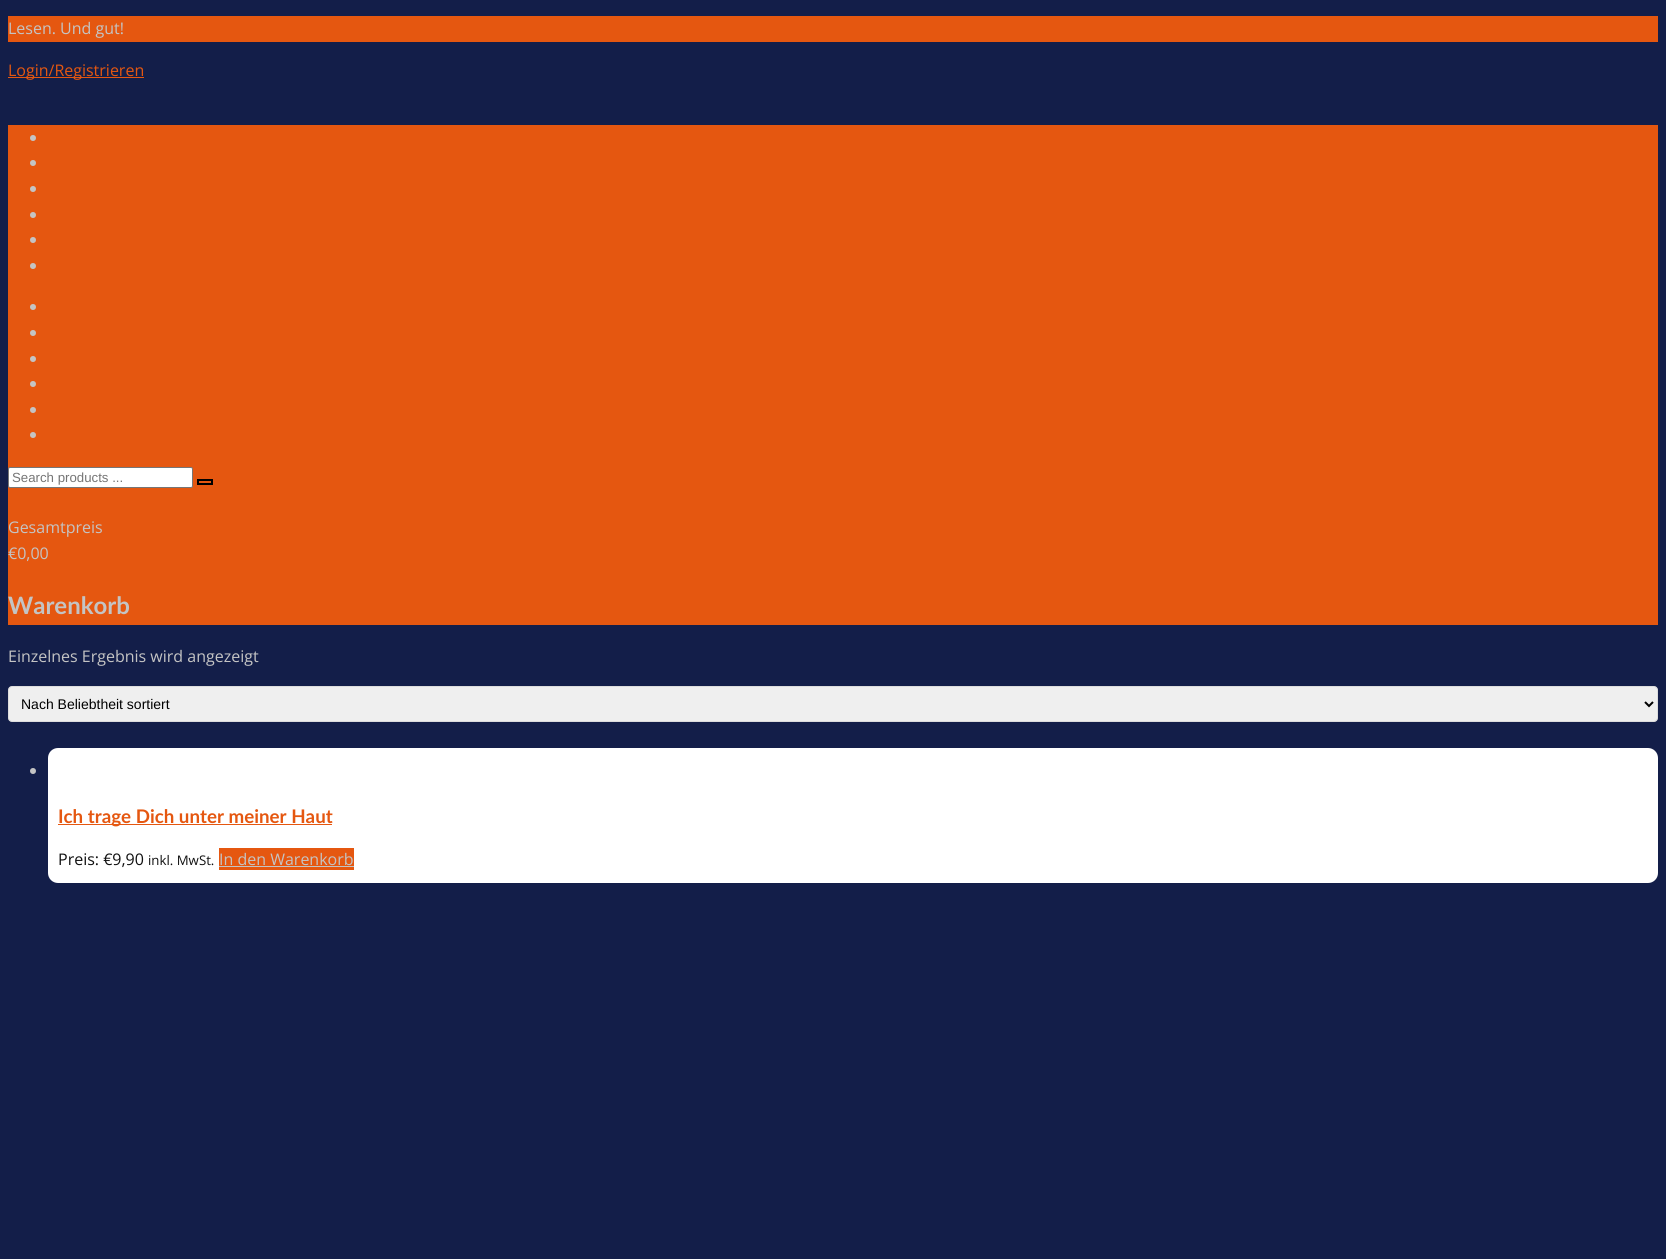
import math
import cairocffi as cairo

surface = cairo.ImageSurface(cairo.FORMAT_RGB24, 1666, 1259)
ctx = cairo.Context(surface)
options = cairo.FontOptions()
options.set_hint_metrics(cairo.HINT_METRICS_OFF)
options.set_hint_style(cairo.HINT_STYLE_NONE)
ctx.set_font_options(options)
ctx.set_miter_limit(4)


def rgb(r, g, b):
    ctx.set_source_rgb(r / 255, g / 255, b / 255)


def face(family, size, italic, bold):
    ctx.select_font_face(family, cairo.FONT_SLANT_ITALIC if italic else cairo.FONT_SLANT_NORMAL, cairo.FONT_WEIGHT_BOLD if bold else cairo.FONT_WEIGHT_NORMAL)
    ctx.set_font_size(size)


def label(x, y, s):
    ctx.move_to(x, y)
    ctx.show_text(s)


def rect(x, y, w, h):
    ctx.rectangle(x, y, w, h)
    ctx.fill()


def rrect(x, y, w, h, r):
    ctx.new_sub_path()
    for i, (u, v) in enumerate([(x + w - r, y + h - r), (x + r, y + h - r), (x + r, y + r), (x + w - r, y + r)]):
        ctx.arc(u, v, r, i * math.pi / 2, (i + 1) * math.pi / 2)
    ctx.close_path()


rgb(19, 30, 73)
ctx.paint()
rgb(229, 87, 16)
rect(8, 16, 1650, 26)
face('Open Sans', 16, 0, 0)
rgb(196, 196, 196)
label(8, 34, 'Lesen. Und gut!')
rgb(229, 87, 16)
rect(8, 77, 136, 1)
label(8, 76, 'Login/Registrieren')
rect(8, 125, 1650, 500)
rgb(196, 196, 196)
ctx.new_path()
ctx.arc(33, 138, 3, 0, 2 * math.pi)
ctx.fill()
ctx.arc(33, 163, 3, 0, 2 * math.pi)
ctx.fill()
ctx.arc(33, 189, 3, 0, 2 * math.pi)
ctx.fill()
ctx.arc(33, 215, 3, 0, 2 * math.pi)
ctx.fill()
ctx.arc(33, 240, 3, 0, 2 * math.pi)
ctx.fill()
ctx.arc(33, 266, 3, 0, 2 * math.pi)
ctx.fill()
ctx.arc(33, 307, 3, 0, 2 * math.pi)
ctx.fill()
ctx.arc(33, 333, 3, 0, 2 * math.pi)
ctx.fill()
ctx.arc(33, 359, 3, 0, 2 * math.pi)
ctx.fill()
ctx.arc(33, 384, 3, 0, 2 * math.pi)
ctx.fill()
ctx.arc(33, 410, 3, 0, 2 * math.pi)
ctx.fill()
ctx.arc(33, 435, 3, 0, 2 * math.pi)
ctx.fill()
rgb(255, 255, 255)
rrect(8.5, 467.5, 184, 20, 1.5)
ctx.fill_preserve()
rgb(118, 118, 118)
ctx.set_line_width(1)
ctx.stroke()
face('Liberation Sans', 13.25, 0, 0)
rgb(117, 117, 117)
label(12, 482, 'Search products ...')
ctx.rectangle(198, 480, 14, 4)
rgb(0, 0, 0)
ctx.set_line_width(2)
ctx.stroke()
face('Open Sans', 16, 0, 0)
rgb(196, 196, 196)
label(8, 533, 'Gesamtpreis')
label(8, 559, '€0,00')
face('Lato', 24, 0, 1)
label(8, 614, 'Warenkorb')
face('Open Sans', 16, 0, 0)
label(8, 662, 'Einzelnes Ergebnis wird angezeigt')
rgb(239, 239, 239)
rrect(8.5, 686.5, 1649, 35, 3.5)
ctx.fill_preserve()
rgb(221, 221, 221)
ctx.set_line_width(1)
ctx.stroke()
ctx.new_path()
ctx.move_to(1645, 702)
ctx.line_to(1649, 706)
ctx.line_to(1653, 702)
rgb(0, 0, 0)
ctx.set_line_width(2)
ctx.stroke()
face('Liberation Sans', 14, 0, 0)
label(21, 709, 'Nach Beliebtheit sortiert')
rgb(255, 255, 255)
rrect(48, 748, 1610, 135, 10)
ctx.fill()
rgb(196, 196, 196)
ctx.arc(33, 771, 3, 0, 2 * math.pi)
ctx.fill()
rgb(229, 87, 16)
rect(58, 824, 274, 1)
face('Lato', 18.75, 0, 1)
label(58, 823, 'Ich trage Dich unter meiner Haut')
face('Open Sans', 16, 0, 0)
rgb(17, 17, 17)
label(58, 865, 'Preis: €9,90')
face('Open Sans', 13.25, 0, 0)
label(148, 865, 'inkl. MwSt.')
rgb(229, 87, 16)
rect(219, 848, 135, 22)
face('Open Sans', 16, 0, 0)
rgb(196, 196, 196)
label(219, 865, 'In den Warenkorb')
rect(219, 866, 135, 1)
surface.write_to_png('render.png')
